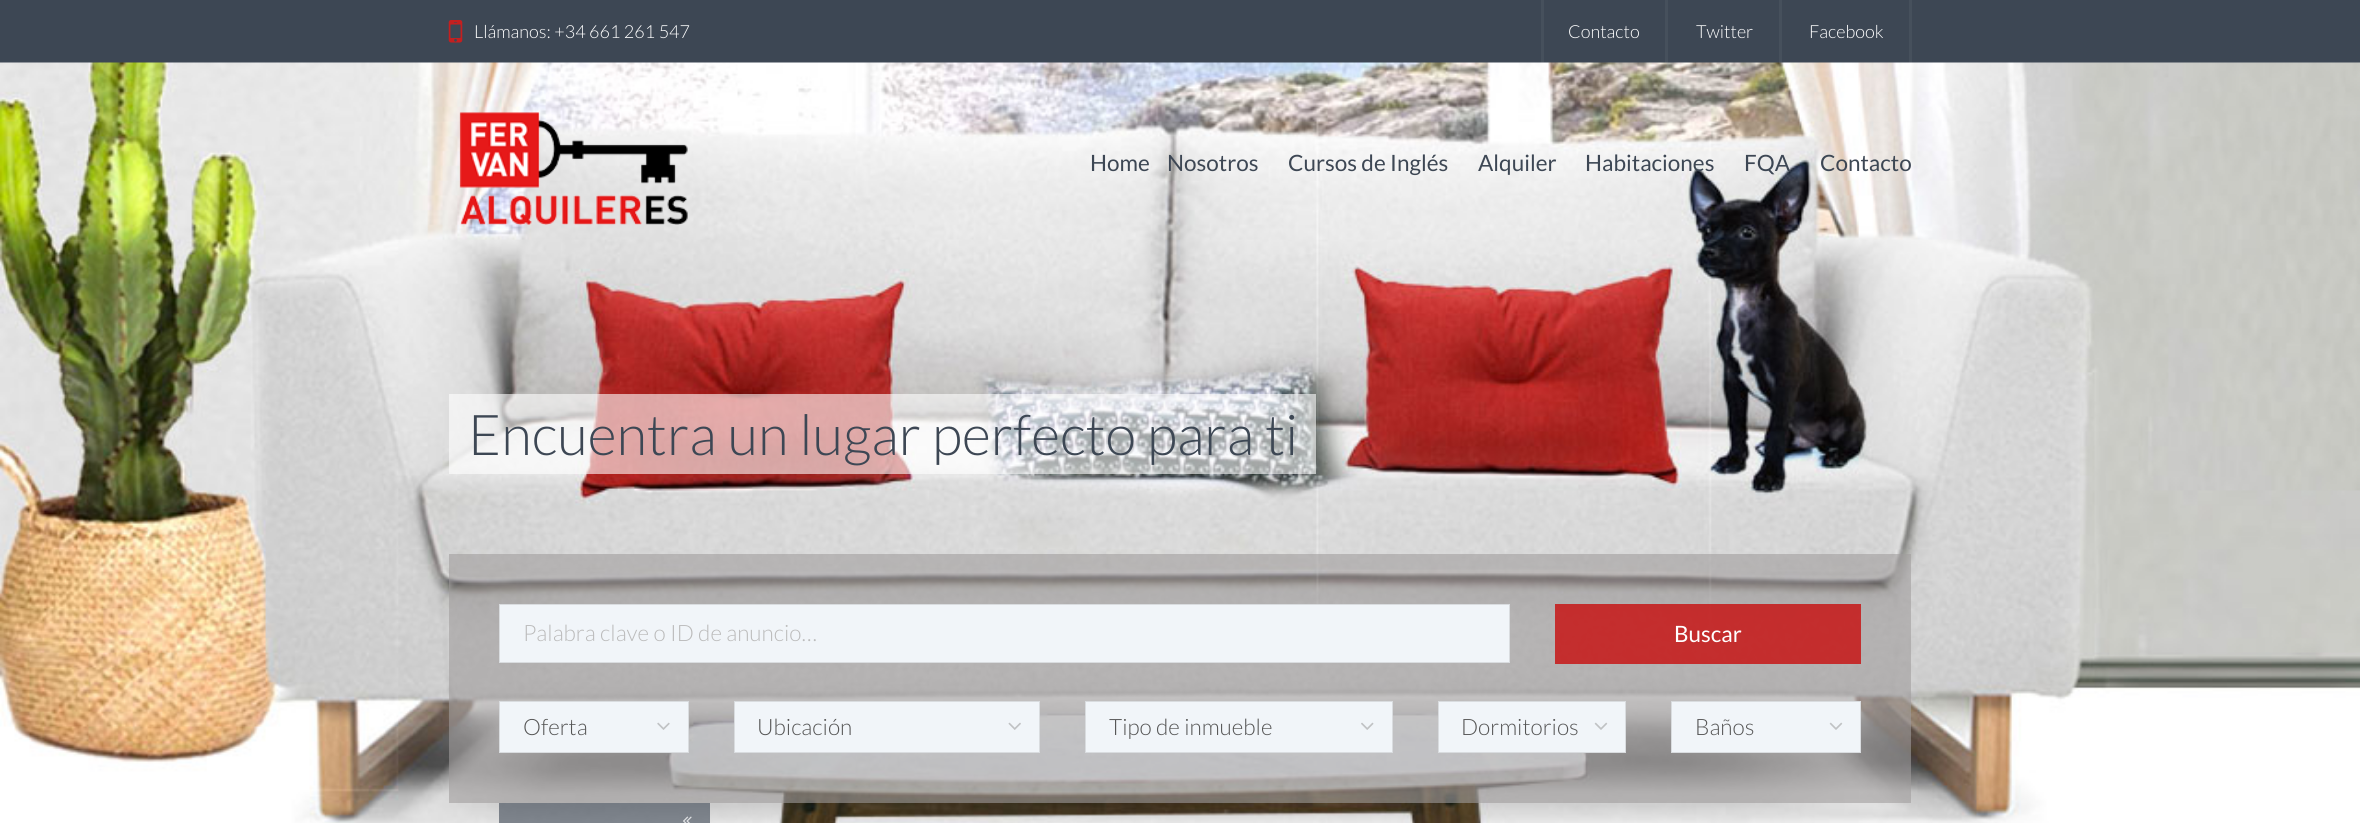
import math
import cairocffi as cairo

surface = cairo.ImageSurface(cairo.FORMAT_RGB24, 2360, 823)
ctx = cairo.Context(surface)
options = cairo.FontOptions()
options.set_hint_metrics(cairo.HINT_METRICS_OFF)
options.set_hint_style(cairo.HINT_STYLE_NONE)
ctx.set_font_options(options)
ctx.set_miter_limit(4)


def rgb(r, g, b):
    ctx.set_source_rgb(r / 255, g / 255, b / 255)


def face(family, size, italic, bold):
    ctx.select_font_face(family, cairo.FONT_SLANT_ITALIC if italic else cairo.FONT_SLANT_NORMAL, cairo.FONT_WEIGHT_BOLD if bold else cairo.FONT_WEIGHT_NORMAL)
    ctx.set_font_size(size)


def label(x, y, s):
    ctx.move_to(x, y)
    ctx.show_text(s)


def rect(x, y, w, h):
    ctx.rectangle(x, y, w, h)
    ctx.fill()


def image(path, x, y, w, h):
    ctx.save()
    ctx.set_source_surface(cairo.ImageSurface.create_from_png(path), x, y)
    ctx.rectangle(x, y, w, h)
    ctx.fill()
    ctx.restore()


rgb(61, 71, 84)
ctx.paint()
image('image0.png', 448, 20, 15, 23)
face('Lato Light', 18, 0, 0)
rgb(255, 255, 255)
label(474, 38, 'Llámanos: +34 661 261 547')
image('image1.png', 0, 62, 2360, 761)
ctx.set_source_rgba(1, 1, 1, 0.05)
rect(1665, 0, 3, 63)
rect(1541, 0, 3, 63)
rgb(255, 255, 255)
label(1568, 38, 'Contacto')
ctx.set_source_rgba(1, 1, 1, 0.05)
rect(1779, 0, 3, 63)
rgb(255, 255, 255)
label(1696, 38, 'Twitter')
ctx.set_source_rgba(1, 1, 1, 0.05)
rect(1909, 0, 3, 63)
rgb(255, 255, 255)
label(1809, 38, 'Facebook')
image('image2.png', 459, 112, 229, 113)
face('Lato', 22.5, 0, 0)
rgb(61, 71, 84)
label(1090, 171, 'Home')
label(1167, 171, 'Nosotros')
label(1288, 171, 'Cursos de Inglés')
label(1478, 171, 'Alquiler')
label(1585, 171, 'Habitaciones')
label(1744, 171, 'FQA')
label(1820, 171, 'Contacto')
ctx.set_source_rgba(1, 1, 1, 0.6)
rect(449, 394, 867, 80)
face('Lato Light', 56.25, 0, 0)
rgb(61, 71, 84)
label(468, 455, 'Encuentra un lugar perfecto para ti')
ctx.set_source_rgba(0.631, 0.612, 0.612, 0.6)
rect(449, 554, 1462, 249)
rgb(241, 245, 249)
ctx.rectangle(499.5, 604.5, 1010, 58)
ctx.fill_preserve()
rgb(217, 220, 223)
ctx.set_line_width(1)
ctx.stroke()
face('Lato Light', 22.5, 0, 0)
rgb(187, 187, 187)
label(523, 641, 'Palabra clave o ID de anuncio…')
ctx.set_source_rgba(0.773, 0.122, 0.122, 0.9)
rect(1555, 604, 306, 60)
face('Lato', 22.5, 0, 0)
rgb(255, 255, 255)
label(1674, 642, 'Buscar')
rgb(241, 245, 249)
ctx.rectangle(499.5, 701.5, 189, 51)
ctx.fill_preserve()
rgb(217, 220, 223)
ctx.stroke()
face('Lato Light', 22.5, 0, 0)
rgb(85, 85, 85)
label(523, 735, 'Oferta')
image('image3.png', 657, 722, 13, 8)
rgb(241, 245, 249)
ctx.rectangle(734.5, 701.5, 305, 51)
ctx.fill_preserve()
rgb(217, 220, 223)
ctx.stroke()
rgb(85, 85, 85)
label(757, 735, 'Ubicación')
image('image4.png', 1008, 722, 13, 8)
rgb(241, 245, 249)
ctx.rectangle(1085.5, 701.5, 307, 51)
ctx.fill_preserve()
rgb(217, 220, 223)
ctx.stroke()
rgb(85, 85, 85)
label(1109, 735, 'Tipo de inmueble')
image('image5.png', 1361, 722, 13, 8)
rgb(241, 245, 249)
ctx.rectangle(1438.5, 701.5, 187, 51)
ctx.fill_preserve()
rgb(217, 220, 223)
ctx.stroke()
rgb(85, 85, 85)
label(1461, 735, 'Dormitorios')
image('image6.png', 1594, 722, 14, 8)
rgb(241, 245, 249)
ctx.rectangle(1671.5, 701.5, 189, 51)
ctx.fill_preserve()
rgb(217, 220, 223)
ctx.stroke()
rgb(85, 85, 85)
label(1695, 735, 'Baños')
image('image6.png', 1829, 722, 14, 8)
ctx.set_source_rgba(0.239, 0.278, 0.329, 0.6)
rect(499, 803, 211, 20)
image('image7.png', 683, 816, 9, 7)
surface.write_to_png('render.png')
